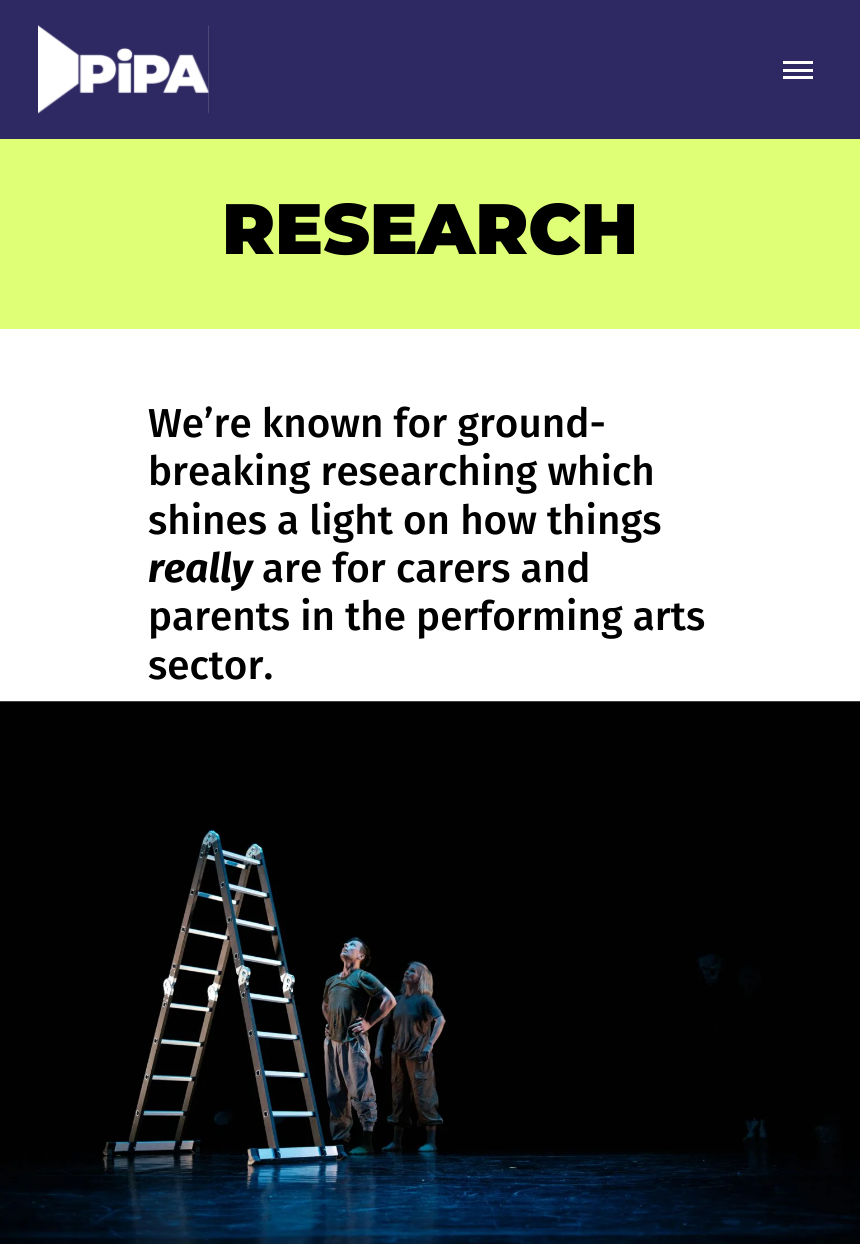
import math
import cairocffi as cairo

surface = cairo.ImageSurface(cairo.FORMAT_RGB24, 860, 1244)
ctx = cairo.Context(surface)
options = cairo.FontOptions()
options.set_hint_metrics(cairo.HINT_METRICS_OFF)
options.set_hint_style(cairo.HINT_STYLE_NONE)
ctx.set_font_options(options)
ctx.set_miter_limit(4)


def rgb(r, g, b):
    ctx.set_source_rgb(r / 255, g / 255, b / 255)


def face(family, size, italic, bold):
    ctx.select_font_face(family, cairo.FONT_SLANT_ITALIC if italic else cairo.FONT_SLANT_NORMAL, cairo.FONT_WEIGHT_BOLD if bold else cairo.FONT_WEIGHT_NORMAL)
    ctx.set_font_size(size)


def label(x, y, s):
    ctx.move_to(x, y)
    ctx.show_text(s)


def rect(x, y, w, h):
    ctx.rectangle(x, y, w, h)
    ctx.fill()


def image(path, x, y, w, h):
    ctx.save()
    ctx.set_source_surface(cairo.ImageSurface.create_from_png(path), x, y)
    ctx.rectangle(x, y, w, h)
    ctx.fill()
    ctx.restore()


rgb(255, 255, 255)
ctx.paint()
rgb(47, 41, 99)
rect(0, 0, 860, 139)
image('image0.png', 38, 25, 171, 89)
rgb(255, 255, 255)
rect(783, 61, 30, 3)
rect(783, 69, 30, 3)
rect(783, 76, 30, 3)
rgb(222, 255, 118)
rect(0, 139, 860, 190)
face('Montserrat Black', 71.25, 0, 0)
rgb(0, 0, 0)
label(222, 254, 'RESEARCH')
face('Fira Sans Medium', 40.4, 0, 0)
label(148, 437, 'We’re known for ground-')
label(148, 485, 'breaking researching which')
label(148, 534, 'shines a light on how things')
face('Fira Sans', 40.4, 1, 1)
label(148, 582, 'really')
face('Fira Sans Medium', 40.4, 0, 0)
label(262, 582, 'are for carers and')
label(148, 630, 'parents in the performing arts')
label(148, 679, 'sector.')
image('image1.png', 0, 701, 860, 543)
surface.write_to_png('render.png')
